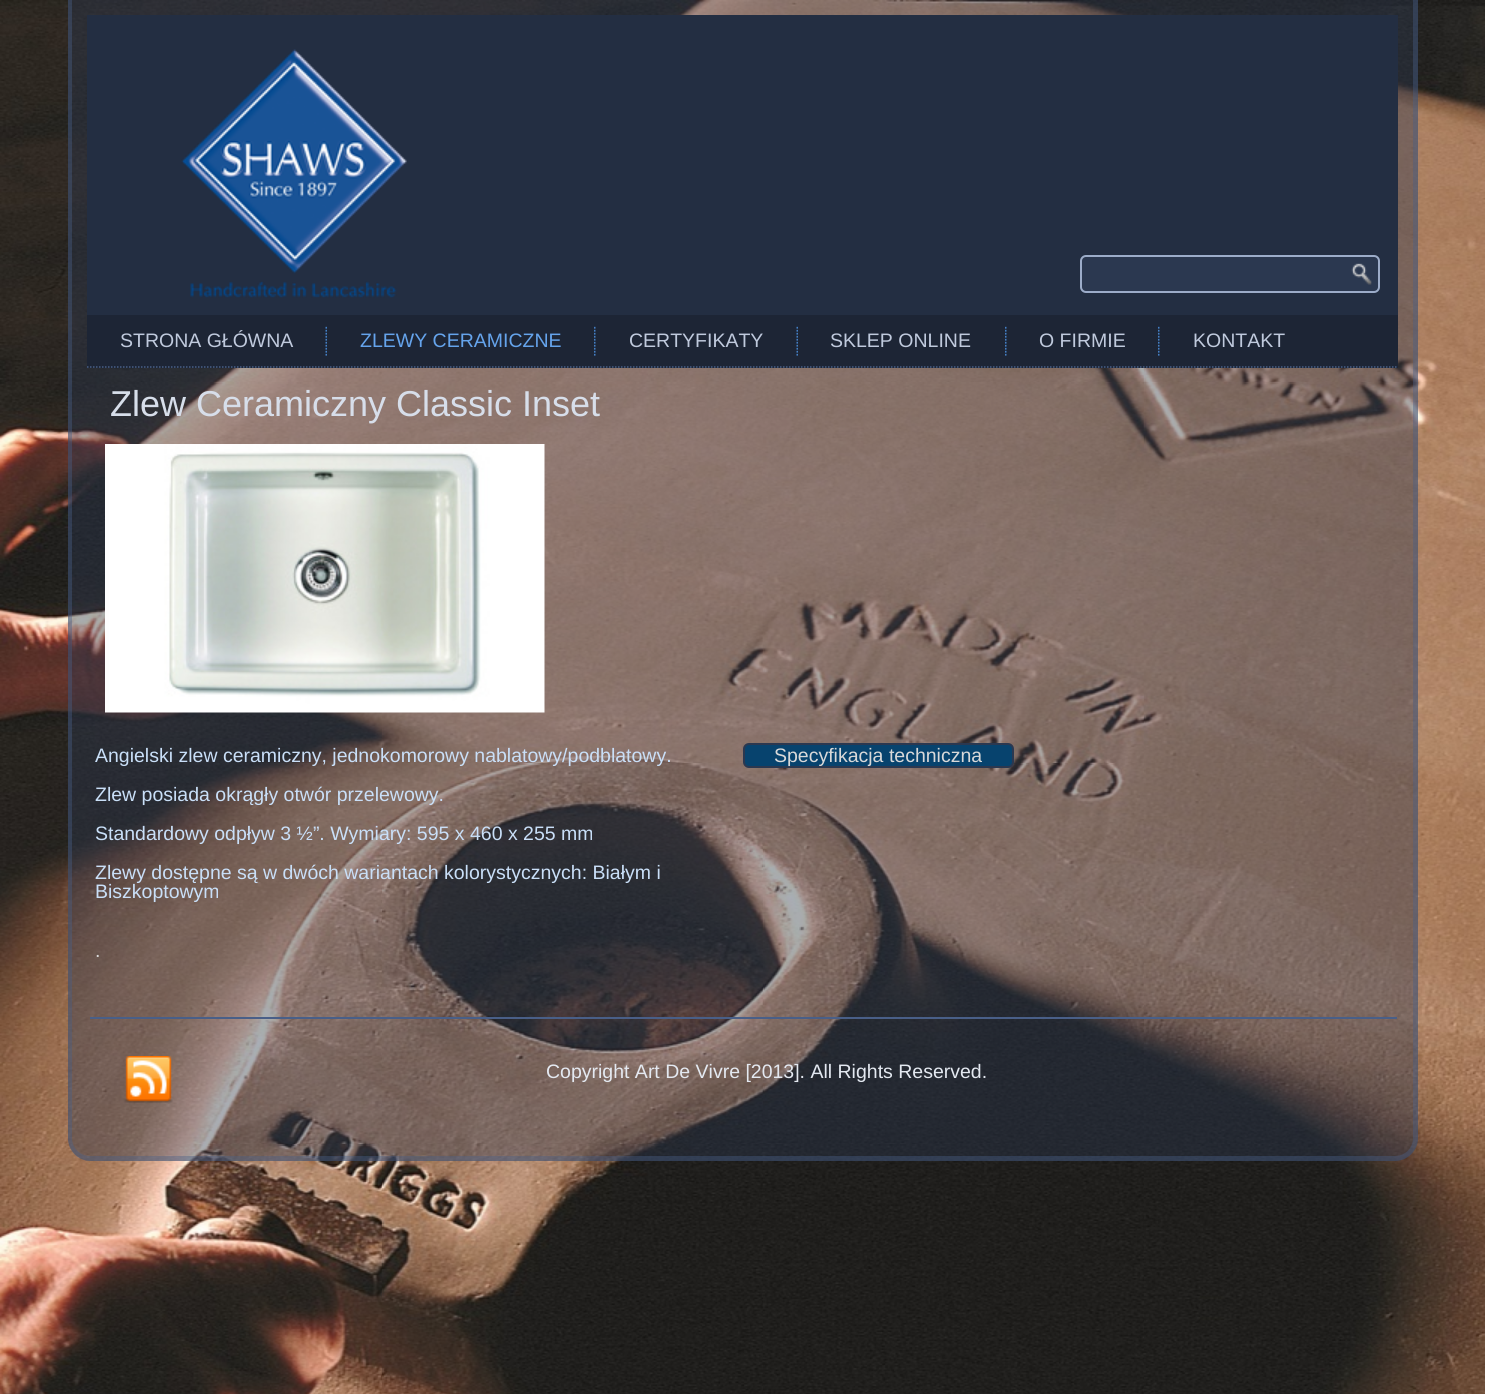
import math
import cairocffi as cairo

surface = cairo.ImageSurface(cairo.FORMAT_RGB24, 1485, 1394)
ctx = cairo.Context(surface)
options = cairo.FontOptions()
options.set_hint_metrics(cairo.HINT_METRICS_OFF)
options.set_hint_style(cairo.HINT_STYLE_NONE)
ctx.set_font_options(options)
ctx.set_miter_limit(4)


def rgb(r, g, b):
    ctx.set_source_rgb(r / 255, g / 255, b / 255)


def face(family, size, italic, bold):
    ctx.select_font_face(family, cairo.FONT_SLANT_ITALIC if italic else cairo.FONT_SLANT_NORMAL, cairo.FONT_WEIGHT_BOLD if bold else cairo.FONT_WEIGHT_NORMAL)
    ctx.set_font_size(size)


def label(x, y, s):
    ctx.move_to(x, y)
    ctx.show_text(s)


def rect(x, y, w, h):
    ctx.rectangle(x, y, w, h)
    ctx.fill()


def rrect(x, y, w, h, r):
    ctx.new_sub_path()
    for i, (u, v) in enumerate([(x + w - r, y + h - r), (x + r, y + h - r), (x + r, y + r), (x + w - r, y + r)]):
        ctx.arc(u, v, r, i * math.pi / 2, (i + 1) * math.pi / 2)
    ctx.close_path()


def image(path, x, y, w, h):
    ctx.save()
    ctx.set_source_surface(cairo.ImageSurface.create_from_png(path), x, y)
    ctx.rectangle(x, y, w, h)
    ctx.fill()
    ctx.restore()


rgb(255, 255, 255)
ctx.paint()
image('image0.png', 0, 0, 1485, 1394)
ctx.set_source_rgba(0.169, 0.22, 0.314, 0.4)
ctx.new_path()
ctx.move_to(68, 0)
ctx.line_to(1418, 0)
ctx.line_to(1418, 1138)
ctx.curve_to(1418, 1150.5, 1407.5, 1161, 1395, 1161)
ctx.line_to(91, 1161)
ctx.curve_to(78.5, 1161, 68, 1150.5, 68, 1138)
ctx.close_path()
ctx.fill()
ctx.set_source_rgba(0.286, 0.373, 0.533, 0.4)
ctx.set_fill_rule(cairo.FILL_RULE_EVEN_ODD)
ctx.new_path()
ctx.move_to(68, 0)
ctx.line_to(1418, 0)
ctx.line_to(1418, 1138)
ctx.curve_to(1418, 1151, 1407, 1161, 1395, 1161)
ctx.line_to(90, 1161)
ctx.curve_to(78, 1161, 68, 1151, 68, 1138)
ctx.close_path()
ctx.move_to(72, 0)
ctx.line_to(1413, 0)
ctx.line_to(1413, 1138)
ctx.curve_to(1413, 1148, 1405, 1156, 1395, 1156)
ctx.line_to(90, 1156)
ctx.curve_to(80, 1156, 72, 1148, 72, 1138)
ctx.close_path()
ctx.fill()
image('image1.png', 87, 15, 1311, 300)
rgb(43, 56, 80)
rrect(1081, 256, 298, 36, 5)
ctx.fill_preserve()
rgb(156, 172, 201)
ctx.stroke()
image('image2.png', 1351, 263, 21, 22)
rgb(29, 37, 53)
rect(87, 315, 1311, 53)
ctx.new_path()
ctx.move_to(87, 367)
ctx.line_to(1398, 367)
rgb(73, 95, 136)
ctx.set_line_width(1.5)
ctx.set_dash([1.5, 1.5])
ctx.stroke()
face('Liberation Sans', 19.5, 0, 0)
rgb(192, 202, 221)
label(120, 347, 'STRONA GŁÓWNA')
image('image3.png', 325, 326, 2, 30)
rgb(101, 164, 236)
label(360, 347, 'ZLEWY CERAMICZNE')
image('image4.png', 594, 326, 2, 30)
rgb(192, 202, 221)
label(629, 347, 'CERTYFIKATY')
image('image3.png', 796, 326, 2, 30)
label(830, 347, 'SKLEP ONLINE')
image('image4.png', 1005, 326, 2, 30)
label(1039, 347, 'O FIRMIE')
image('image4.png', 1158, 326, 2, 30)
label(1193, 347, 'KONTAKT')
face('Liberation Sans', 36, 0, 0)
rgb(215, 222, 234)
label(110, 416, 'Zlew Ceramiczny Classic Inset')
image('image5.png', 105, 444, 440, 269)
face('Liberation Sans', 19.5, 0, 0)
rgb(201, 223, 248)
label(95, 762, 'Angielski zlew ceramiczny, jednokomorowy nablatowy/podblatowy.')
label(95, 801, 'Zlew posiada okrągły otwór przelewowy.')
label(95, 840, 'Standardowy odpływ 3 ½”. Wymiary: 595 x 460 x 255 mm')
label(95, 879, 'Zlewy dostępne są w dwóch wariantach kolorystycznych: Białym i')
label(95, 898, 'Biszkoptowym')
rgb(7, 67, 110)
rrect(744, 744, 269, 23, 5)
ctx.fill_preserve()
rgb(43, 56, 80)
ctx.set_line_width(2)
ctx.set_dash([])
ctx.stroke()
rgb(217, 217, 217)
label(774, 762, 'Specyfikacja techniczna')
label(95, 957, '.')
rgb(73, 95, 136)
rect(90, 1017, 1307, 2)
image('image6.png', 124, 1056, 49, 47)
rgb(228, 233, 241)
label(546, 1078, 'Copyright Art De Vivre [2013]. All Rights Reserved.')
surface.write_to_png('render.png')
